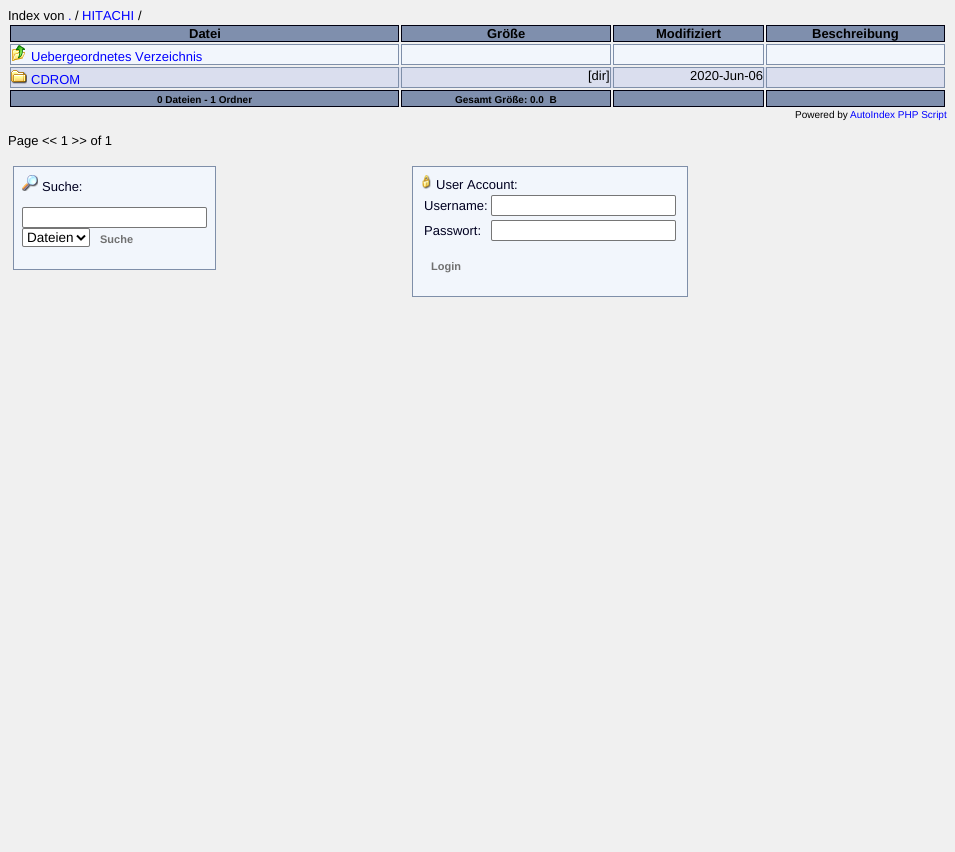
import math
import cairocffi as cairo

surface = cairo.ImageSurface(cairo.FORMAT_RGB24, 955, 852)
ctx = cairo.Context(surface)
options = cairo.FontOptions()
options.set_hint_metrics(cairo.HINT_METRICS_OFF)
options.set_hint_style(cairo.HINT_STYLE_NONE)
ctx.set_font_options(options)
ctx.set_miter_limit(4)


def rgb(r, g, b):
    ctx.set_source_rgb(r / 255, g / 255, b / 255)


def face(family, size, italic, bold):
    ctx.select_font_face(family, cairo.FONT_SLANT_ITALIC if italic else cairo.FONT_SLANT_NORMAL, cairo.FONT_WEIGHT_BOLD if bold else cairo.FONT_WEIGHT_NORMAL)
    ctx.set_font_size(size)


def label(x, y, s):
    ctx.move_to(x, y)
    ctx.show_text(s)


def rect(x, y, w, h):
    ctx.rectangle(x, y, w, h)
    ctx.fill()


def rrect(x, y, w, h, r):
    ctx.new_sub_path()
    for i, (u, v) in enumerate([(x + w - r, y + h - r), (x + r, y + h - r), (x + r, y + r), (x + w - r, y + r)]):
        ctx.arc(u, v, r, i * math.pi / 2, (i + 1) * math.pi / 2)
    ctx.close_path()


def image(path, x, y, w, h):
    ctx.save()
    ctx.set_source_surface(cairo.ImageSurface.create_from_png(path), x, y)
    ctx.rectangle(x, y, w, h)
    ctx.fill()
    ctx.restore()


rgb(240, 240, 240)
ctx.paint()
face('Liberation Sans', 13, 0, 0)
rgb(0, 0, 0)
label(8, 20, 'Index von')
rgb(0, 0, 255)
label(68, 20, '.')
rgb(0, 0, 0)
label(75, 20, '/')
rgb(0, 0, 255)
label(82, 20, 'HITACHI')
rgb(0, 0, 0)
label(138, 20, '/')
rgb(127, 143, 173)
ctx.rectangle(10.5, 25.5, 388, 16)
ctx.fill_preserve()
rgb(0, 0, 16)
ctx.set_line_width(1)
ctx.stroke()
face('Liberation Sans', 13, 0, 1)
rgb(0, 0, 0)
label(189, 38, 'Datei')
rgb(127, 143, 173)
ctx.rectangle(401.5, 25.5, 209, 16)
ctx.fill_preserve()
rgb(0, 0, 16)
ctx.stroke()
rgb(0, 0, 0)
label(487, 38, 'Größe')
rgb(127, 143, 173)
ctx.rectangle(613.5, 25.5, 150, 16)
ctx.fill_preserve()
rgb(0, 0, 16)
ctx.stroke()
rgb(0, 0, 0)
label(656, 38, 'Modifiziert')
rgb(127, 143, 173)
ctx.rectangle(766.5, 25.5, 178, 16)
ctx.fill_preserve()
rgb(0, 0, 16)
ctx.stroke()
rgb(0, 0, 0)
label(812, 38, 'Beschreibung')
rgb(242, 246, 252)
rect(11, 44, 933, 21)
ctx.rectangle(10.5, 44.5, 388, 20)
rgb(127, 143, 169)
ctx.stroke()
image('image0.png', 12, 45, 13, 16)
face('Liberation Sans', 13, 0, 0)
rgb(0, 0, 255)
label(31, 61, 'Uebergeordnetes Verzeichnis')
ctx.rectangle(401.5, 44.5, 209, 20)
rgb(127, 143, 169)
ctx.stroke()
ctx.rectangle(613.5, 44.5, 150, 20)
ctx.stroke()
ctx.rectangle(766.5, 44.5, 178, 20)
ctx.stroke()
rgb(218, 222, 238)
rect(11, 67, 933, 21)
ctx.rectangle(10.5, 67.5, 388, 20)
rgb(127, 143, 169)
ctx.stroke()
image('image1.png', 11, 70, 16, 14)
rgb(0, 0, 255)
label(31, 84, 'CDROM')
ctx.rectangle(401.5, 67.5, 209, 20)
rgb(127, 143, 169)
ctx.stroke()
rgb(0, 0, 0)
label(588, 80, '[dir]')
ctx.rectangle(613.5, 67.5, 150, 20)
rgb(127, 143, 169)
ctx.stroke()
rgb(0, 0, 0)
label(690, 80, '2020-Jun-06')
ctx.rectangle(766.5, 67.5, 178, 20)
rgb(127, 143, 169)
ctx.stroke()
rgb(127, 143, 173)
ctx.rectangle(10.5, 90.5, 388, 16)
ctx.fill_preserve()
rgb(0, 0, 16)
ctx.stroke()
face('Liberation Sans', 10, 0, 1)
rgb(0, 0, 0)
label(157, 103, '0 Dateien - 1 Ordner')
rgb(127, 143, 173)
ctx.rectangle(401.5, 90.5, 209, 16)
ctx.fill_preserve()
rgb(0, 0, 16)
ctx.stroke()
rgb(0, 0, 0)
label(455, 103, 'Gesamt Größe: 0.0  B')
rgb(127, 143, 173)
ctx.rectangle(613.5, 90.5, 150, 16)
ctx.fill_preserve()
rgb(0, 0, 16)
ctx.stroke()
rgb(127, 143, 173)
ctx.rectangle(766.5, 90.5, 178, 16)
ctx.fill_preserve()
rgb(0, 0, 16)
ctx.stroke()
face('Liberation Sans', 10, 0, 0)
rgb(0, 0, 0)
label(795, 118, 'Powered by')
rgb(0, 0, 255)
label(850, 118, 'AutoIndex PHP Script')
face('Liberation Sans', 13, 0, 0)
rgb(0, 0, 0)
label(8, 145, 'Page << 1 >> of 1')
rgb(242, 246, 252)
ctx.rectangle(13.5, 166.5, 202, 103)
ctx.fill_preserve()
rgb(127, 143, 169)
ctx.stroke()
image('image2.png', 22, 175, 16, 16)
rgb(0, 0, 32)
label(42, 191, 'Suche:')
rgb(255, 255, 255)
rrect(22.5, 207.5, 184, 20, 1.5)
ctx.fill_preserve()
rgb(118, 118, 118)
ctx.stroke()
rgb(255, 255, 255)
rrect(22.5, 228.5, 67, 18, 1.5)
ctx.fill_preserve()
rgb(118, 118, 118)
ctx.stroke()
ctx.new_path()
ctx.move_to(77, 235.5)
ctx.line_to(81, 239.5)
ctx.line_to(85, 235.5)
rgb(0, 0, 0)
ctx.set_line_width(2)
ctx.stroke()
face('Liberation Sans', 13.5, 0, 0)
label(27, 242, 'Dateien')
face('Liberation Sans', 11, 0, 1)
rgb(112, 112, 112)
label(100, 243, 'Suche')
rgb(242, 246, 252)
ctx.rectangle(412.5, 166.5, 275, 130)
ctx.fill_preserve()
rgb(127, 143, 169)
ctx.set_line_width(1)
ctx.stroke()
image('image3.png', 422, 175, 9, 14)
face('Liberation Sans', 13, 0, 0)
rgb(0, 0, 32)
label(436, 189, 'User Account:')
label(424, 210, 'Username:')
rgb(255, 255, 255)
rrect(491.5, 195.5, 184, 20, 1.5)
ctx.fill_preserve()
rgb(118, 118, 118)
ctx.stroke()
rgb(0, 0, 32)
label(424, 235, 'Passwort:')
rgb(255, 255, 255)
rrect(491.5, 220.5, 184, 20, 1.5)
ctx.fill_preserve()
rgb(118, 118, 118)
ctx.stroke()
face('Liberation Sans', 11, 0, 1)
rgb(112, 112, 112)
label(431, 270, 'Login')
surface.write_to_png('render.png')
